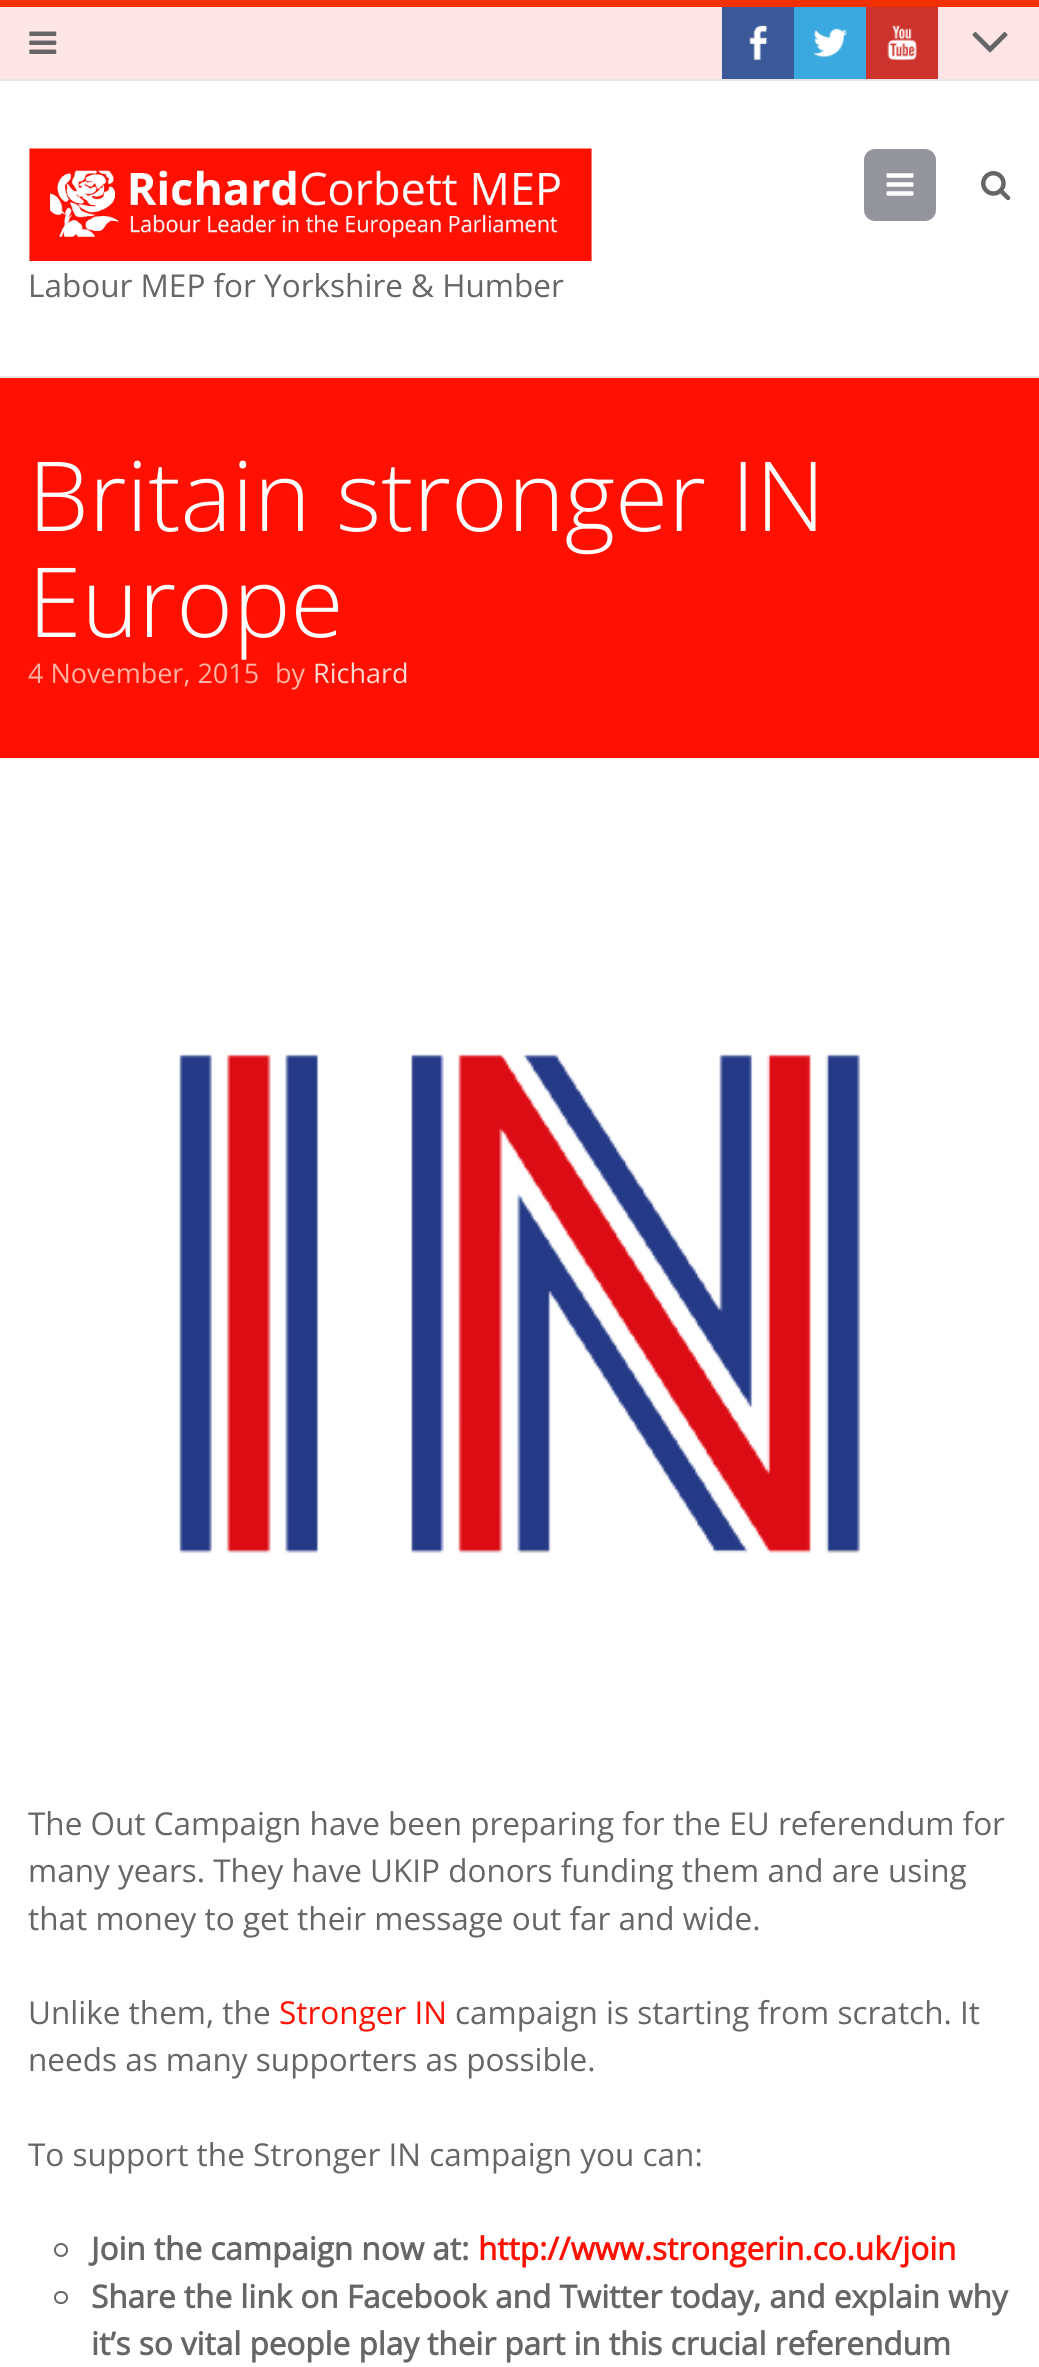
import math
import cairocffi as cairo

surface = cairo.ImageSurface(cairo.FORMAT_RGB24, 1039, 2367)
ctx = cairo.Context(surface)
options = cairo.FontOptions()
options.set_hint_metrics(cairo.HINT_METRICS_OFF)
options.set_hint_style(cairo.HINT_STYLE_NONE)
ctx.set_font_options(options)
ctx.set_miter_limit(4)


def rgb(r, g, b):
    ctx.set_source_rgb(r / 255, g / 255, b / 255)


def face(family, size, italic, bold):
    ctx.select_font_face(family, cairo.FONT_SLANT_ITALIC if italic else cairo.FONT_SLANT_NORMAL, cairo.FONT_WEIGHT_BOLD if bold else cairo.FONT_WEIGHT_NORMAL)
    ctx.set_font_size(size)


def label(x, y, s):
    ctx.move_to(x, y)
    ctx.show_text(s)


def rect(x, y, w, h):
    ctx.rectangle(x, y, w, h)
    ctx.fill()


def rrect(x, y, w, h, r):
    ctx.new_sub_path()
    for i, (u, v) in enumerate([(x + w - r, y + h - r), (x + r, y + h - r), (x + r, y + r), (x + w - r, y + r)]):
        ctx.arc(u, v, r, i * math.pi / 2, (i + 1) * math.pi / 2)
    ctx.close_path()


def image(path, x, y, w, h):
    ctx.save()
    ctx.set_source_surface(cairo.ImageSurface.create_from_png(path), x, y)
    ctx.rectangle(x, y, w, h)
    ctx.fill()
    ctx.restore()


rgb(255, 255, 255)
ctx.paint()
rgb(255, 229, 229)
rect(0, 7, 1039, 72)
rgb(242, 48, 0)
rect(0, 0, 1039, 7)
rgb(230, 230, 230)
rect(0, 79, 1039, 2)
image('image0.png', 29, 31, 28, 23)
rgb(59, 89, 152)
rect(722, 7, 72, 72)
image('image1.png', 749, 25, 19, 36)
rgb(57, 169, 224)
rect(794, 7, 72, 72)
image('image2.png', 813, 28, 35, 30)
rgb(205, 51, 45)
rect(866, 7, 72, 72)
image('image3.png', 887, 25, 30, 36)
image('image4.png', 972, 32, 36, 21)
rgb(148, 148, 156)
rrect(865, 150, 70, 70, 10)
ctx.fill_preserve()
ctx.stroke()
image('image5.png', 886, 173, 28, 23)
image('image6.png', 981, 171, 30, 30)
image('image7.png', 29, 148, 563, 113)
face('Open Sans', 31.5, 0, 0)
rgb(102, 102, 102)
label(28, 297, 'Labour MEP for Yorkshire & Humber')
rgb(230, 230, 230)
rect(0, 376, 1039, 2)
rgb(255, 16, 0)
rect(0, 378, 1039, 380)
face('Open Sans Light', 96.75, 0, 0)
rgb(255, 255, 255)
label(28, 531, 'Britain stronger IN')
label(28, 637, 'Europe')
face('Open Sans', 27, 0, 0)
rgb(253, 178, 163)
label(28, 683, '4 November, 2015')
label(275, 683, 'by')
rgb(254, 218, 212)
label(313, 683, 'Richard')
image('image8.png', 179, 1054, 682, 500)
face('Open Sans', 31.5, 0, 0)
rgb(102, 102, 102)
label(28, 1835, 'The Out Campaign have been preparing for the EU referendum for')
label(28, 1882, 'many years. They have UKIP donors funding them and are using')
label(28, 1930, 'that money to get their message out far and wide.')
label(28, 2024, 'Unlike them, the')
rgb(255, 16, 0)
label(279, 2024, 'Stronger IN')
rgb(102, 102, 102)
label(455, 2024, 'campaign is starting from scratch. It')
label(28, 2071, 'needs as many supporters as possible.')
label(28, 2166, 'To support the Stronger IN campaign you can:')
ctx.new_path()
ctx.arc(61, 2250, 6, 0, 2 * math.pi)
ctx.stroke()
face('Open Sans', 31.5, 0, 1)
label(91, 2260, 'Join the campaign now at:')
rgb(255, 16, 0)
label(478, 2260, 'http://www.strongerin.co.uk/join')
rrect(55, 2292, 12, 11, 5.5)
rgb(102, 102, 102)
ctx.stroke()
label(91, 2308, 'Share the link on Facebook and Twitter today, and explain why')
label(91, 2355, 'it’s so vital people play their part in this crucial referendum')
surface.write_to_png('render.png')
